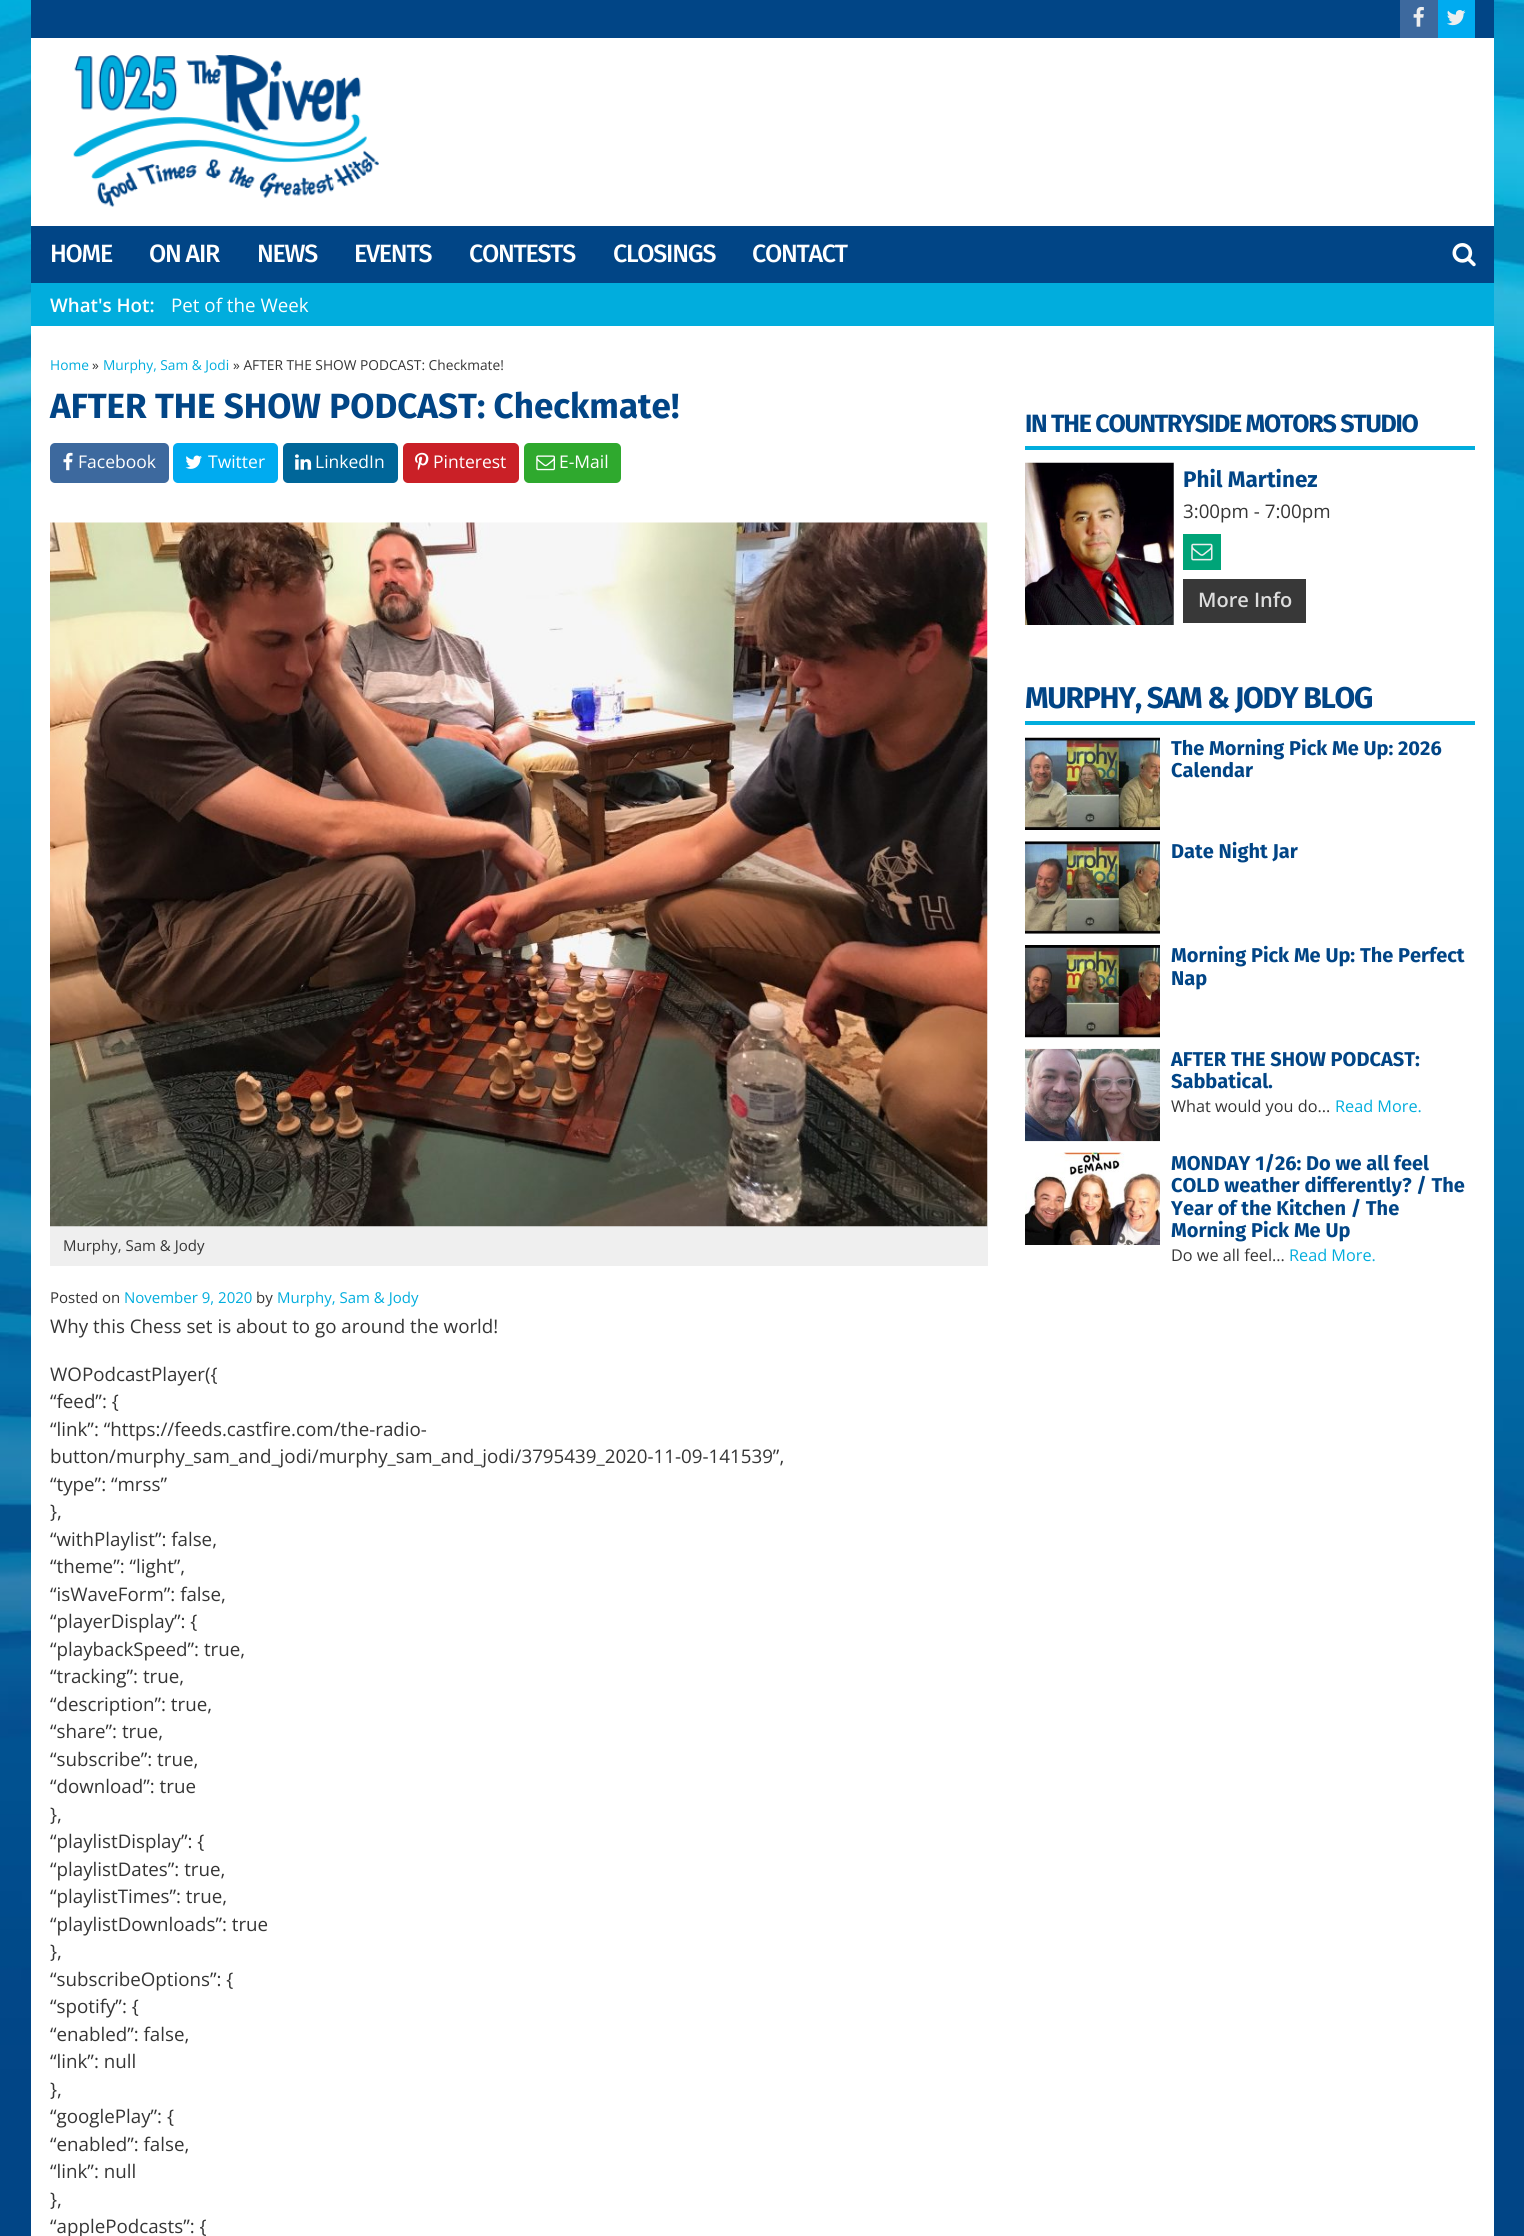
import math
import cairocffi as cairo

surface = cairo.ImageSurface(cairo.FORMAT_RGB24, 1524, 2236)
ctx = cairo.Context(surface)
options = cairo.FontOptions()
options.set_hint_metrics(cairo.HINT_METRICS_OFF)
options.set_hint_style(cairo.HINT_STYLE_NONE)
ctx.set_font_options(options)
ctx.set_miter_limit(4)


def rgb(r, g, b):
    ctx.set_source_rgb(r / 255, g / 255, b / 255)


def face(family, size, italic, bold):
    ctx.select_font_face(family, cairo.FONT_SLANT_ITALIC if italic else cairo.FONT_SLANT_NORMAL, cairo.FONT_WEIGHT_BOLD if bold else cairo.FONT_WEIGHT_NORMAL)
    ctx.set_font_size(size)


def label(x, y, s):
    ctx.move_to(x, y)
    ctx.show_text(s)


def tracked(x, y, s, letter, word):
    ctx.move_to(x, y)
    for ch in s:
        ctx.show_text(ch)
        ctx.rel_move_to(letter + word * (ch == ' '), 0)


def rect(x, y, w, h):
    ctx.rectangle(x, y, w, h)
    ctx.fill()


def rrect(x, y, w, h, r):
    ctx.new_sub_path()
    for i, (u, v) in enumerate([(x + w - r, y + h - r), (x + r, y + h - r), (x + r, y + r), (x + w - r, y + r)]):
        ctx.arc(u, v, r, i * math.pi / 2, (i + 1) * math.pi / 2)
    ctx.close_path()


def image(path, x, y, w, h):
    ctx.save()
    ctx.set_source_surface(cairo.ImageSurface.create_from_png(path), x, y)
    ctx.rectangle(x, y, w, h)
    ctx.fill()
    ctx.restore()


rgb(255, 255, 255)
ctx.paint()
image('image0.png', 0, 0, 1524, 2236)
rgb(255, 255, 255)
rect(31, 38, 1463, 188)
rgb(1, 69, 134)
rect(31, 0, 1463, 38)
rgb(61, 105, 158)
rect(1400, 0, 38, 38)
image('image1.png', 1413, 6, 11, 21)
rgb(0, 171, 240)
rect(1438, 0, 37, 38)
image('image2.png', 1447, 10, 19, 16)
image('image3.png', 73, 55, 306, 152)
rgb(1, 69, 134)
rect(31, 226, 1463, 57)
face('Fira Sans Medium', 25, 0, 0)
rgb(255, 255, 255)
tracked(50, 262, 'HOME', -1.25, 0)
tracked(149, 262, 'ON AIR', -1.25, 0)
tracked(257, 262, 'NEWS', -1.25, 0)
tracked(354, 262, 'EVENTS', -1.25, 0)
tracked(469, 262, 'CONTESTS', -1.25, 0)
tracked(613, 262, 'CLOSINGS', -1.25, 0)
tracked(752, 262, 'CONTACT', -1.25, 0)
image('image4.png', 1452, 243, 24, 24)
rgb(1, 173, 221)
rect(31, 283, 1463, 43)
face('Open Sans SemiBold', 18.75, 0, 0)
rgb(255, 255, 255)
label(50, 312, 'What\'s Hot:')
face('Open Sans', 18.75, 0, 0)
label(171, 312, 'Pet of the Week')
rect(31, 326, 1463, 1910)
face('Open Sans', 13.75, 0, 0)
rgb(1, 173, 221)
label(50, 370, 'Home')
rgb(53, 53, 53)
label(92, 370, '»')
rgb(1, 173, 221)
label(103, 370, 'Murphy, Sam & Jodi')
rgb(53, 53, 53)
label(233, 370, '» AFTER THE SHOW PODCAST: Checkmate!')
face('Fira Sans', 35, 0, 1)
rgb(1, 69, 134)
label(50, 418, 'AFTER THE SHOW PODCAST: Checkmate!')
rgb(61, 105, 158)
rrect(50, 443, 119, 40, 5)
ctx.fill()
image('image5.png', 63, 452, 10, 19)
face('Open Sans', 17.5, 0, 0)
rgb(255, 255, 255)
label(78, 468, 'Facebook')
rgb(0, 171, 240)
rrect(173, 443, 105, 40, 5)
ctx.fill()
image('image6.png', 185, 455, 17, 14)
rgb(255, 255, 255)
label(208, 468, 'Twitter')
rgb(0, 102, 153)
rrect(283, 443, 115, 40, 5)
ctx.fill()
image('image7.png', 295, 454, 17, 16)
rgb(255, 255, 255)
label(315, 468, 'LinkedIn')
rgb(202, 32, 39)
rrect(403, 443, 116, 40, 5)
ctx.fill()
image('image8.png', 415, 452, 14, 19)
rgb(255, 255, 255)
label(433, 468, 'Pinterest')
rgb(47, 169, 46)
rrect(524, 443, 97, 40, 5)
ctx.fill()
image('image9.png', 536, 455, 19, 16)
rgb(255, 255, 255)
label(559, 468, 'E-Mail')
rgb(239, 239, 239)
rect(50, 1226, 938, 40)
image('image10.png', 50, 522, 938, 705)
face('Open Sans', 15, 0, 0)
rgb(53, 53, 53)
label(63, 1251, 'Murphy, Sam & Jody')
label(50, 1303, 'Posted on')
rgb(1, 173, 221)
label(124, 1303, 'November 9, 2020')
rgb(53, 53, 53)
label(256, 1303, 'by')
rgb(1, 173, 221)
label(277, 1303, 'Murphy, Sam & Jody')
face('Open Sans', 18.75, 0, 0)
rgb(53, 53, 53)
label(50, 1333, 'Why this Chess set is about to go around the world!')
label(50, 1381, 'WOPodcastPlayer({')
label(50, 1408, '“feed”: {')
label(50, 1436, '“link”: “https://feeds.castfire.com/the-radio-')
label(50, 1463, 'button/murphy_sam_and_jodi/murphy_sam_and_jodi/3795439_2020-11-09-141539”,')
label(50, 1491, '“type”: “mrss”')
label(50, 1518, '},')
label(50, 1546, '“withPlaylist”: false,')
label(50, 1573, '“theme”: “light”,')
label(50, 1601, '“isWaveForm”: false,')
label(50, 1628, '“playerDisplay”: {')
label(50, 1656, '“playbackSpeed”: true,')
label(50, 1683, '“tracking”: true,')
label(50, 1711, '“description”: true,')
label(50, 1738, '“share”: true,')
label(50, 1766, '“subscribe”: true,')
label(50, 1793, '“download”: true')
label(50, 1821, '},')
label(50, 1848, '“playlistDisplay”: {')
label(50, 1876, '“playlistDates”: true,')
label(50, 1903, '“playlistTimes”: true,')
label(50, 1931, '“playlistDownloads”: true')
label(50, 1958, '},')
label(50, 1986, '“subscribeOptions”: {')
label(50, 2013, '“spotify”: {')
label(50, 2041, '“enabled”: false,')
label(50, 2068, '“link”: null')
label(50, 2096, '},')
label(50, 2123, '“googlePlay”: {')
label(50, 2151, '“enabled”: false,')
label(50, 2178, '“link”: null')
label(50, 2206, '},')
label(50, 2233, '“applePodcasts”: {')
rgb(1, 173, 221)
rect(1025, 446, 450, 4)
face('Fira Sans', 25, 0, 1)
rgb(1, 69, 134)
tracked(1025, 432, 'IN THE COUNTRYSIDE MOTORS STUDIO', -1.25, 0)
image('image11.png', 1025, 462, 149, 163)
face('Fira Sans', 22.5, 0, 1)
label(1183, 487, 'Phil Martinez')
face('Open Sans', 18.75, 0, 0)
rgb(53, 53, 53)
label(1183, 518, '3:00pm - 7:00pm')
rgb(0, 164, 120)
rect(1183, 534, 38, 36)
image('image12.png', 1191, 543, 22, 18)
rgb(56, 56, 56)
rect(1183, 579, 123, 44)
face('Open Sans SemiBold', 20, 0, 0)
rgb(221, 221, 221)
label(1198, 607, 'More Info')
rgb(1, 173, 221)
rect(1025, 721, 450, 4)
face('Fira Sans', 30, 0, 1)
rgb(1, 69, 134)
tracked(1025, 708, 'MURPHY, SAM & JODY BLOG', -1.25, 0)
image('image13.png', 1025, 737, 135, 93)
face('Fira Sans', 20, 0, 1)
label(1171, 755, 'The Morning Pick Me Up: 2026')
label(1171, 777, 'Calendar')
image('image14.png', 1025, 841, 135, 93)
label(1171, 858, 'Date Night Jar')
image('image15.png', 1025, 945, 135, 93)
label(1171, 962, 'Morning Pick Me Up: The Perfect')
label(1171, 985, 'Nap')
image('image16.png', 1025, 1048, 135, 94)
label(1171, 1066, 'AFTER THE SHOW PODCAST:')
label(1171, 1088, 'Sabbatical.')
face('Open Sans', 16.25, 0, 0)
rgb(53, 53, 53)
label(1171, 1112, 'What would you do...')
rgb(1, 173, 221)
label(1335, 1112, 'Read More.')
image('image17.png', 1025, 1152, 135, 93)
face('Fira Sans', 20, 0, 1)
rgb(1, 69, 134)
label(1171, 1170, 'MONDAY 1/26: Do we all feel')
label(1171, 1192, 'COLD weather differently? / The')
label(1171, 1215, 'Year of the Kitchen / The')
label(1171, 1237, 'Morning Pick Me Up')
face('Open Sans', 16.25, 0, 0)
rgb(53, 53, 53)
label(1171, 1261, 'Do we all feel...')
rgb(1, 173, 221)
label(1289, 1261, 'Read More.')
surface.write_to_png('render.png')
